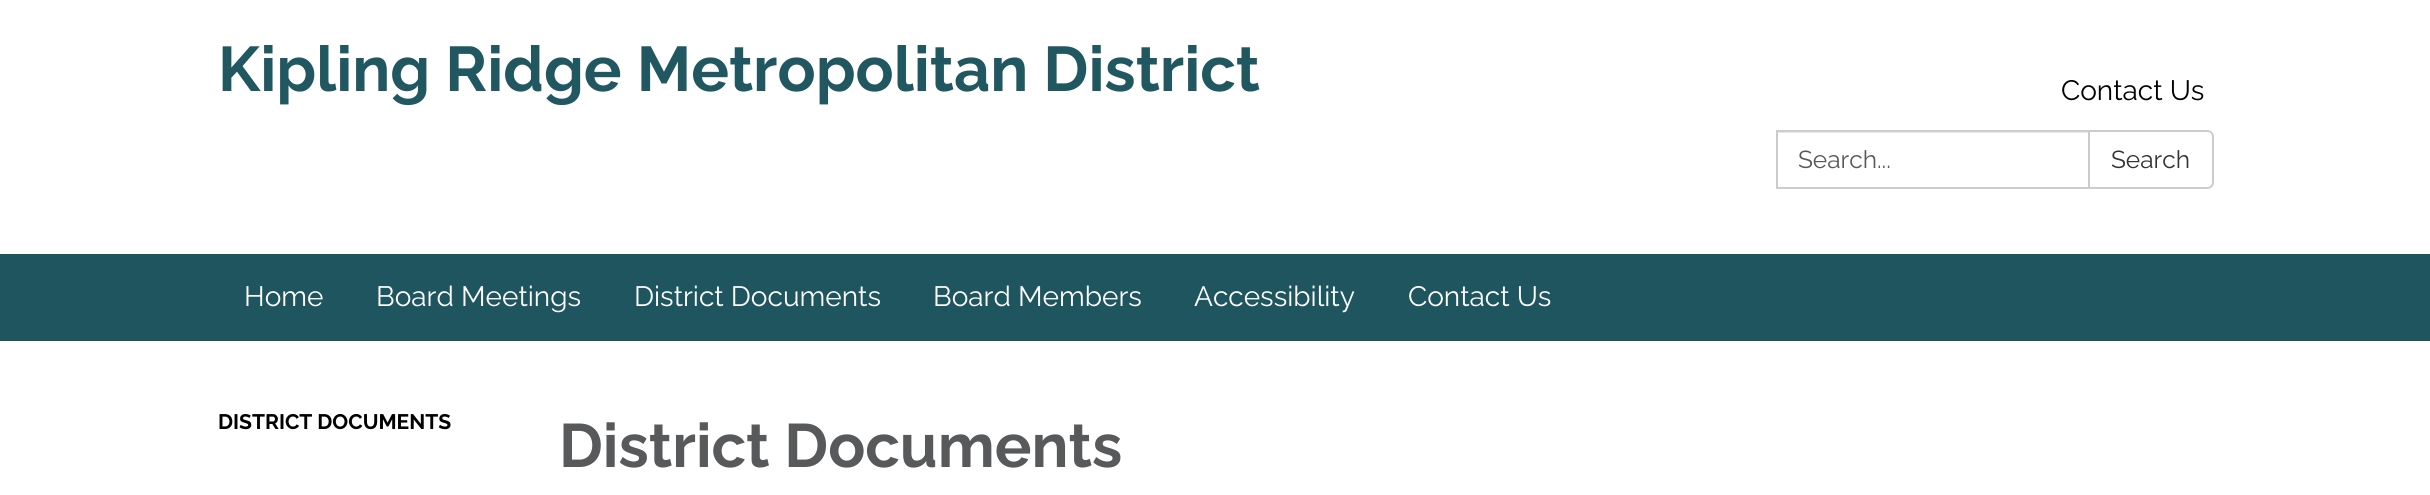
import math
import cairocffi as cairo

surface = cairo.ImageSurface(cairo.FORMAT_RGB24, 2430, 495)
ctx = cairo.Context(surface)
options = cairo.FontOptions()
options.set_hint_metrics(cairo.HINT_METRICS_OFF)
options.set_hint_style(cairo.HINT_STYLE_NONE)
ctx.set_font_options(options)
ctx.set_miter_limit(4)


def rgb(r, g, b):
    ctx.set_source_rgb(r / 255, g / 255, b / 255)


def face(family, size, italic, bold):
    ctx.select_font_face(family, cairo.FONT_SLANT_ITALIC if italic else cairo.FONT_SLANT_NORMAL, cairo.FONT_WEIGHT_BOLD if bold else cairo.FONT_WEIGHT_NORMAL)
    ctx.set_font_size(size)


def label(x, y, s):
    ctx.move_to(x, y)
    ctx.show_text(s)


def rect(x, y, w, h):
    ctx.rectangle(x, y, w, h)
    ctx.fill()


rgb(255, 255, 255)
ctx.paint()
face('Raleway', 63, 0, 1)
rgb(33, 87, 97)
label(218, 91, 'Kipling Ridge Metropolitan District')
face('Raleway', 28, 0, 0)
rgb(0, 0, 0)
label(2061, 100, 'Contact Us')
rgb(236, 236, 236)
rect(1778, 132, 310, 1)
ctx.rectangle(1777, 131, 312, 57)
rgb(204, 204, 204)
ctx.stroke()
face('Raleway', 24.5, 0, 0)
rgb(88, 89, 91)
label(1798, 168, 'Search...')
rgb(255, 255, 255)
ctx.new_path()
ctx.move_to(2089, 131)
ctx.line_to(2207, 131)
ctx.curve_to(2210.5, 131, 2213, 133.5, 2213, 137)
ctx.line_to(2213, 182)
ctx.curve_to(2213, 185.5, 2210.5, 188, 2207, 188)
ctx.line_to(2089, 188)
ctx.close_path()
ctx.fill_preserve()
rgb(204, 204, 204)
ctx.stroke()
rgb(51, 51, 51)
label(2111, 168, 'Search')
rgb(31, 85, 94)
rect(0, 254, 2430, 87)
face('Raleway', 28, 0, 0)
rgb(255, 255, 255)
label(244, 306, 'Home')
label(376, 306, 'Board Meetings')
label(634, 306, 'District Documents')
label(933, 306, 'Board Members')
label(1194, 306, 'Accessibility')
label(1408, 306, 'Contact Us')
face('Raleway', 21, 0, 1)
rgb(0, 0, 0)
label(218, 429, 'DISTRICT DOCUMENTS')
face('Raleway', 61.25, 0, 1)
rgb(88, 89, 91)
label(559, 467, 'District Documents')
surface.write_to_png('render.png')
